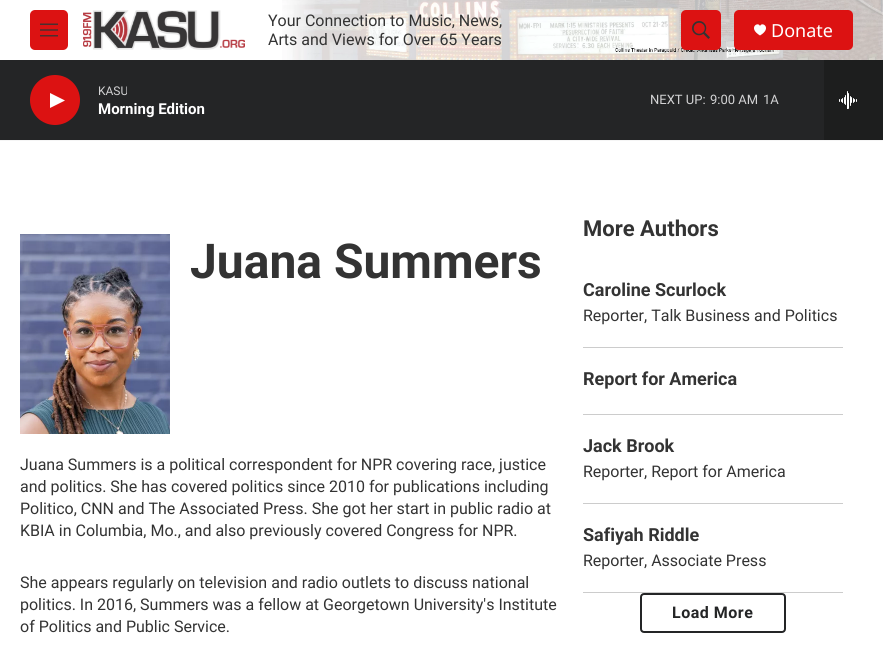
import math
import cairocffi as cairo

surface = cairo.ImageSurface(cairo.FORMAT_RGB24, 883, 672)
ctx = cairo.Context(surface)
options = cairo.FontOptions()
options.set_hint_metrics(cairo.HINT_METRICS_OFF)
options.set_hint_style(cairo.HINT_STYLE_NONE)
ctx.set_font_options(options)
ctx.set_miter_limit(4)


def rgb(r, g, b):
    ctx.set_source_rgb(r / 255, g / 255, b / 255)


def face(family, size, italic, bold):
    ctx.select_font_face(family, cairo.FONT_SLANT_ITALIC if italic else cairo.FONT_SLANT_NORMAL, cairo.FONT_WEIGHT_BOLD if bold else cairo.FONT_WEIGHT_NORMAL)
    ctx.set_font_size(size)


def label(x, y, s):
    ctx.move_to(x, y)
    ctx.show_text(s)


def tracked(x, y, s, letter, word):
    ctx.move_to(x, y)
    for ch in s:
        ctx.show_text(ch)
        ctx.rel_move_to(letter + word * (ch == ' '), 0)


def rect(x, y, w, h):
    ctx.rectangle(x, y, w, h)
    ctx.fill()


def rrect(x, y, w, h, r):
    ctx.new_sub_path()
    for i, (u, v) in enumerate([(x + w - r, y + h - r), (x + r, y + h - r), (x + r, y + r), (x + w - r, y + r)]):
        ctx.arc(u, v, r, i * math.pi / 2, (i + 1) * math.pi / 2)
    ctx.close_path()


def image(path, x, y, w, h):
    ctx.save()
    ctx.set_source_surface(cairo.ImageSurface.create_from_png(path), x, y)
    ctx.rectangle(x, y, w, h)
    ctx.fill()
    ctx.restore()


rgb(255, 255, 255)
ctx.paint()
rgb(245, 245, 245)
rect(0, 140, 883, 1)
image('image0.png', 282, 0, 601, 60)
rgb(220, 18, 18)
rrect(30, 10, 38, 40, 5)
ctx.fill()
image('image1.png', 40, 23, 18, 14)
image('image2.png', 83, 10, 162, 40)
face('Roboto', 16, 0, 0)
rgb(51, 51, 51)
label(268, 26, 'Your Connection to Music, News,')
label(268, 45, 'Arts and Views for Over 65 Years')
rgb(220, 18, 18)
rrect(681, 10, 40, 40, 5)
ctx.fill()
image('image3.png', 692, 21, 18, 18)
rrect(734, 10, 119, 40, 5)
ctx.fill()
rgb(255, 255, 255)
ctx.new_path()
ctx.move_to(760, 26)
ctx.curve_to(758, 21, 747.5, 28, 760, 35.5)
ctx.curve_to(772.5, 28, 762, 21, 760, 26)
ctx.close_path()
ctx.fill()
face('Noto Sans', 18, 0, 0)
label(771, 37, 'Donate')
rgb(36, 37, 38)
rect(0, 60, 824, 80)
rgb(220, 18, 18)
ctx.new_path()
ctx.arc(55, 100, 25, 0, 2 * math.pi)
ctx.fill()
rgb(255, 255, 255)
ctx.new_path()
ctx.move_to(50, 93)
ctx.line_to(65, 100.5)
ctx.line_to(50, 108)
ctx.close_path()
ctx.fill()
face('Roboto', 12, 0, 0)
rgb(211, 211, 212)
label(98, 95, 'KASU')
face('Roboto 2', 15, 0, 1)
rgb(255, 255, 255)
label(98, 114, 'Morning Edition')
face('Roboto', 13, 0, 0)
rgb(211, 211, 212)
label(650, 104, 'NEXT UP:')
label(710, 104, '9:00 AM')
label(763, 104, '1A')
rgb(29, 30, 30)
rect(824, 60, 59, 80)
image('image4.png', 839, 91, 18, 18)
image('image5.png', 20, 234, 150, 200)
face('Roboto', 48, 0, 1)
rgb(51, 51, 51)
label(190, 278, 'Juana Summers')
face('Roboto', 16, 0, 0)
label(20, 470, 'Juana Summers is a political correspondent for NPR covering race, justice')
label(20, 492, 'and politics. She has covered politics since 2010 for publications including')
label(20, 514, 'Politico, CNN and The Associated Press. She got her start in public radio at')
label(20, 536, 'KBIA in Columbia, Mo., and also previously covered Congress for NPR.')
label(20, 588, 'She appears regularly on television and radio outlets to discuss national')
label(20, 610, 'politics. In 2016, Summers was a fellow at Georgetown University\'s Institute')
label(20, 632, 'of Politics and Public Service.')
face('Roboto', 22, 0, 1)
label(583, 236, 'More Authors')
rgb(204, 204, 204)
rect(583, 347, 260, 1)
face('Roboto', 18, 0, 1)
rgb(51, 51, 51)
label(583, 296, 'Caroline Scurlock')
face('Roboto', 16, 0, 0)
label(583, 321, 'Reporter, Talk Business and Politics')
rgb(204, 204, 204)
rect(583, 414, 260, 1)
face('Roboto', 18, 0, 1)
rgb(51, 51, 51)
label(583, 385, 'Report for America')
rgb(204, 204, 204)
rect(583, 503, 260, 1)
rgb(51, 51, 51)
label(583, 452, 'Jack Brook')
face('Roboto', 16, 0, 0)
label(583, 477, 'Reporter, Report for America')
rgb(204, 204, 204)
rect(583, 592, 260, 1)
face('Roboto', 18, 0, 1)
rgb(51, 51, 51)
label(583, 541, 'Safiyah Riddle')
face('Roboto', 16, 0, 0)
label(583, 566, 'Reporter, Associate Press')
rrect(641, 594, 144, 38, 3)
rgb(36, 37, 38)
ctx.stroke()
face('Roboto', 16, 0, 1)
tracked(672, 618, 'Load More', 0.5, 0)
surface.write_to_png('render.png')
